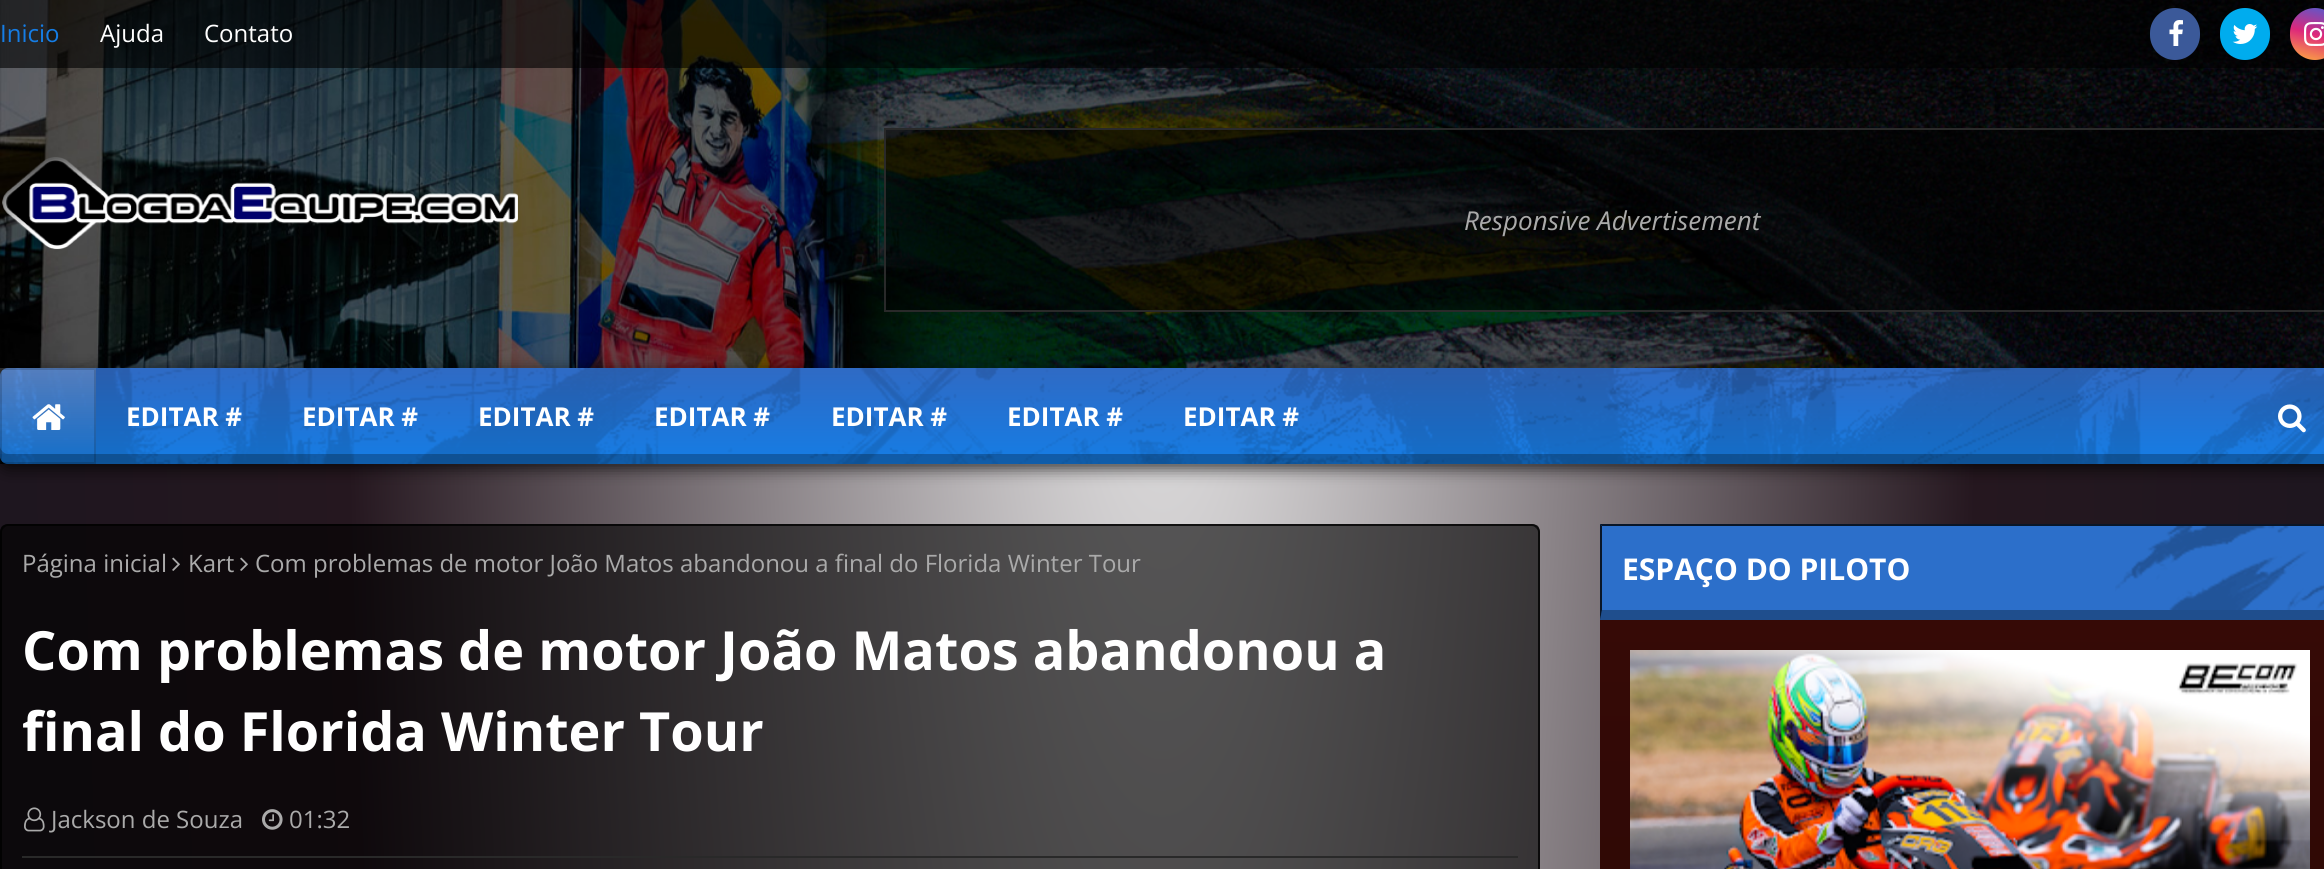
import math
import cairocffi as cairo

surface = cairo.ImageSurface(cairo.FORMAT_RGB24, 2324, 869)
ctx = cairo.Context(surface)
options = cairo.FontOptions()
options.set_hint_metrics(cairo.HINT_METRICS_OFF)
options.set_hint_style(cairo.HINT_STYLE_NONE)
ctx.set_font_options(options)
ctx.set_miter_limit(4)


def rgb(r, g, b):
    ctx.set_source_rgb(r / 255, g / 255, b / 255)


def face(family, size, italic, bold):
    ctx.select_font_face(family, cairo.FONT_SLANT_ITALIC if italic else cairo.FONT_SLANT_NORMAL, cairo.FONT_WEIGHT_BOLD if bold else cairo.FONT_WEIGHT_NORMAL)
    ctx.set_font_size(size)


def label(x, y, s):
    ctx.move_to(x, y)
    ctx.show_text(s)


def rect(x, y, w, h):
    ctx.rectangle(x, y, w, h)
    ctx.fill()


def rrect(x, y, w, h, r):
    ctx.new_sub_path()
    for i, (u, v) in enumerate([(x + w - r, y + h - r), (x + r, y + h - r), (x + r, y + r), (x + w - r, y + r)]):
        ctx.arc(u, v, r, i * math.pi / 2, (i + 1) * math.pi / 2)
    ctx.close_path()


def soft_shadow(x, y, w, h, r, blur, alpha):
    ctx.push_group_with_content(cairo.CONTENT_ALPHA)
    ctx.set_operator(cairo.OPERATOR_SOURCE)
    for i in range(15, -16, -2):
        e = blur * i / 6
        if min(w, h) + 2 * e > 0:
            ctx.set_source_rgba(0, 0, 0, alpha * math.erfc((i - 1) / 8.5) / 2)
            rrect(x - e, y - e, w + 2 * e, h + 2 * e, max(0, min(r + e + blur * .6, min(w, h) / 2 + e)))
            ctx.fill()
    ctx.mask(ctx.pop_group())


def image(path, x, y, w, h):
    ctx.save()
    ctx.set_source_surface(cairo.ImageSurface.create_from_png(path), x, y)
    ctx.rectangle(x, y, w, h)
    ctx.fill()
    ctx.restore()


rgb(255, 255, 255)
ctx.paint()
gradient = cairo.RadialGradient(0, 0, 0, 0, 0, 1)
gradient.set_matrix(cairo.Matrix(1 / 1643, 0, 0, 1 / 7843, -1 * 1162 / 1643, -1 * 0 / 7843))
gradient.add_color_stop_rgba(0, 0.933, 0.933, 0.933, 1)
gradient.add_color_stop_rgba(0.5, 0.145, 0.09, 0.122, 1)
gradient.add_color_stop_rgba(1, 0.078, 0.082, 0.122, 1)
ctx.set_source(gradient)
rect(0, 464, 2324, 405)
image('image0.png', 0, 0, 2324, 464)
ctx.set_source_rgba(0, 0, 0, 0.6)
rect(0, 0, 2324, 68)
face('Open Sans', 24, 0, 0)
rgb(21, 125, 229)
label(0, 42, 'Inicio')
rgb(255, 255, 255)
label(100, 42, 'Ajuda')
label(204, 42, 'Contato')
rgb(59, 89, 153)
rrect(2150, 8, 50, 52, 25)
ctx.fill()
image('image1.png', 2169, 20, 14, 26)
rgb(0, 172, 238)
rrect(2220, 8, 50, 52, 25)
ctx.fill()
image('image2.png', 2232, 24, 26, 20)
gradient = cairo.LinearGradient(2307, 65, 2323, 3.5)
gradient.add_color_stop_rgba(0, 1, 0.694, 0.239, 1)
gradient.add_color_stop_rgba(0.5, 0.867, 0.153, 0.482, 1)
gradient.add_color_stop_rgba(1, 0.302, 0.369, 0.831, 1)
ctx.set_source(gradient)
rrect(2290, 8, 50, 52, 25)
ctx.fill()
image('image3.png', 2304, 22, 20, 24)
image('image4.png', 2, 157, 516, 93)
ctx.set_source_rgba(0, 0, 0, 0.6)
ctx.rectangle(885, 129, 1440, 182)
ctx.fill_preserve()
rgb(41, 41, 41)
ctx.stroke()
face('Open Sans', 26, 1, 0)
rgb(170, 170, 170)
label(1464, 230, 'Responsive Advertisement')
gradient = cairo.LinearGradient(1170, 464, 1170, 368)
gradient.add_color_stop_rgba(0, 0.082, 0.49, 0.898, 1)
gradient.add_color_stop_rgba(1, 0.184, 0.416, 0.769, 1)
ctx.set_source(gradient)
rrect(0, 368, 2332, 96, 8)
ctx.fill()
ctx.save()
ctx.set_fill_rule(cairo.FILL_RULE_EVEN_ODD)
ctx.new_path()
ctx.move_to(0, 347)
ctx.line_to(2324, 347)
ctx.line_to(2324, 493)
ctx.line_to(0, 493)
ctx.close_path()
ctx.move_to(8, 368)
ctx.line_to(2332, 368)
ctx.curve_to(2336.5, 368, 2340, 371.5, 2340, 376)
ctx.line_to(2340, 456)
ctx.curve_to(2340, 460.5, 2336.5, 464, 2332, 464)
ctx.line_to(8, 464)
ctx.curve_to(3.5, 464, 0, 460.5, 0, 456)
ctx.line_to(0, 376)
ctx.curve_to(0, 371.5, 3.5, 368, 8, 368)
ctx.close_path()
ctx.clip()
rgb(0, 0, 0)
soft_shadow(0, 372, 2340, 96, 8, 8, 0.75)
ctx.restore()
image('image5.png', 0, 368, 2324, 96)
ctx.set_source_rgba(0, 0, 0, 0.26)
ctx.new_path()
ctx.move_to(0, 446)
ctx.line_to(0, 456)
ctx.curve_to(0, 460, 4, 464, 8, 464)
ctx.line_to(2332, 464)
ctx.curve_to(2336, 464, 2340, 460, 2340, 456)
ctx.line_to(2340, 446)
ctx.curve_to(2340, 450, 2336, 454, 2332, 454)
ctx.line_to(8, 454)
ctx.curve_to(4, 454, 0, 450, 0, 446)
ctx.close_path()
ctx.fill()
gradient = cairo.LinearGradient(48, 368, 48, 464)
gradient.add_color_stop_rgba(0, 1, 1, 1, 0.2)
gradient.add_color_stop_rgba(1, 1, 1, 1, 0)
ctx.set_source(gradient)
rect(0, 368, 96, 86)
ctx.rectangle(1, 369, 94, 94)
ctx.set_source_rgba(0, 0, 0, 0.15)
ctx.stroke()
image('image6.png', 32, 404, 33, 26)
face('Open Sans', 26, 0, 1)
rgb(255, 255, 255)
label(126, 426, 'EDITAR #')
label(302, 426, 'EDITAR #')
label(478, 426, 'EDITAR #')
label(654, 426, 'EDITAR #')
label(831, 426, 'EDITAR #')
label(1007, 426, 'EDITAR #')
label(1183, 426, 'EDITAR #')
image('image7.png', 2278, 404, 28, 29)
ctx.set_source_rgba(0, 0, 0, 0.6)
rrect(0, 524, 1540, 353, 8)
ctx.fill()
ctx.set_source_rgba(0, 0, 0, 0.8)
ctx.new_path()
ctx.move_to(8, 524)
ctx.curve_to(6, 524, 4, 525, 2, 526)
ctx.line_to(4, 528)
ctx.curve_to(5, 527, 6, 526, 8, 526)
ctx.line_to(1532, 526)
ctx.curve_to(1534, 526, 1535, 527, 1536, 528)
ctx.line_to(1538, 526)
ctx.curve_to(1536, 525, 1534, 524, 1532, 524)
ctx.close_path()
ctx.fill()
ctx.new_path()
ctx.move_to(1540, 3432)
ctx.line_to(1540, 532)
ctx.curve_to(1540, 530, 1539, 528, 1538, 526)
ctx.line_to(1536, 528)
ctx.curve_to(1537, 529, 1538, 530, 1538, 532)
ctx.line_to(1538, 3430)
ctx.line_to(1539, 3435)
ctx.close_path()
ctx.fill()
ctx.new_path()
ctx.move_to(0, 532)
ctx.line_to(0, 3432)
ctx.line_to(1, 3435)
ctx.line_to(2, 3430)
ctx.line_to(2, 532)
ctx.curve_to(2, 530, 3, 529, 4, 528)
ctx.line_to(2, 526)
ctx.curve_to(1, 528, 0, 530, 0, 532)
ctx.close_path()
ctx.fill()
face('Open Sans', 24, 0, 0)
rgb(170, 170, 170)
label(22, 572, 'Página inicial')
image('image8.png', 172, 557, 8, 14)
label(188, 572, 'Kart')
image('image9.png', 240, 557, 8, 14)
label(255, 572, 'Com problemas de motor João Matos abandonou a final do Florida Winter Tour')
face('Open Sans', 54, 0, 1)
rgb(255, 255, 255)
label(22, 670, 'Com problemas de motor João Matos abandonou a')
label(22, 751, 'final do Florida Winter Tour')
rgb(41, 41, 41)
rect(22, 856, 1496, 2)
image('image10.png', 24, 807, 21, 25)
face('Open Sans', 24, 0, 0)
rgb(170, 170, 170)
label(51, 828, 'Jackson de Souza')
image('image11.png', 262, 809, 21, 21)
label(289, 828, '01:32')
rgb(44, 111, 202)
rect(1600, 524, 724, 96)
rgb(9, 22, 40)
ctx.new_path()
ctx.move_to(1600, 524)
ctx.line_to(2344, 524)
ctx.line_to(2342, 526)
ctx.line_to(1602, 526)
ctx.close_path()
ctx.fill()
rgb(31, 78, 141)
ctx.new_path()
ctx.move_to(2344, 620)
ctx.line_to(1600, 620)
ctx.line_to(1602, 610)
ctx.line_to(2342, 610)
ctx.close_path()
ctx.fill()
ctx.set_source_rgba(0, 0, 0, 0.8)
ctx.new_path()
ctx.move_to(1600, 620)
ctx.line_to(1600, 524)
ctx.line_to(1602, 526)
ctx.line_to(1602, 610)
ctx.close_path()
ctx.fill()
image('image12.png', 2115, 526, 209, 84)
face('Open Sans', 30, 0, 1)
rgb(255, 255, 255)
label(1622, 580, 'ESPAÇO DO PILOTO')
gradient = cairo.LinearGradient(1970, 620, 1970, 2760)
gradient.add_color_stop_rgba(0, 0.212, 0.039, 0.024, 1)
gradient.add_color_stop_rgba(1, 0, 0, 0, 1)
ctx.set_source(gradient)
rect(1600, 620, 724, 249)
image('image13.png', 1630, 650, 680, 219)
surface.write_to_png('render.png')
